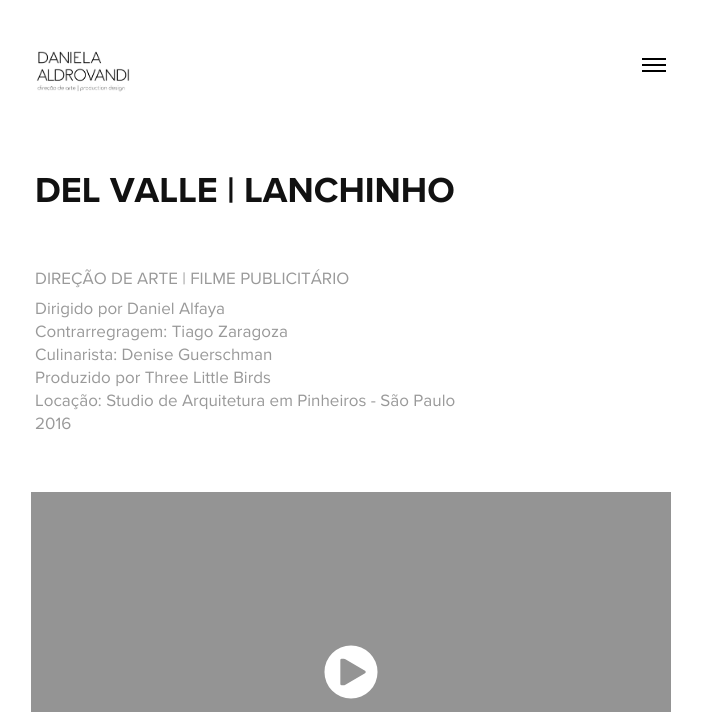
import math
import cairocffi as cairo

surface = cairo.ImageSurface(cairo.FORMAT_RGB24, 701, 712)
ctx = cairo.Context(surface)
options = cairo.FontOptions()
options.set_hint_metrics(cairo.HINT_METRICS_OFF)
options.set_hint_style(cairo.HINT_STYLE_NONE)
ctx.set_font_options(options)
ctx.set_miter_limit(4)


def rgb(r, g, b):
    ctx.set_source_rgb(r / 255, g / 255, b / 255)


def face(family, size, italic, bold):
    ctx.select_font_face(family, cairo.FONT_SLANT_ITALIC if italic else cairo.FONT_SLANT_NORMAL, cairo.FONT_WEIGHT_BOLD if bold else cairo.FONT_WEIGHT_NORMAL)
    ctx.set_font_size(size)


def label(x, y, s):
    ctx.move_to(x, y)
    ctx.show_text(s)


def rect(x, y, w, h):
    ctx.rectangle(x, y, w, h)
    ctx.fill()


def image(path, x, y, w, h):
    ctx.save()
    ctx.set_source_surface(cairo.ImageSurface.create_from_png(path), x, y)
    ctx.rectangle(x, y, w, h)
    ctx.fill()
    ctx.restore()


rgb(255, 255, 255)
ctx.paint()
image('image0.png', 36, 51, 94, 41)
rgb(0, 0, 0)
rect(642, 58, 24, 2)
rect(642, 64, 24, 2)
rect(642, 70, 24, 2)
face('Proxima Nova', 36, 0, 1)
rgb(17, 17, 17)
label(35, 202, 'DEL VALLE | LANCHINHO')
face('Proxima Nova', 17, 0, 0)
rgb(153, 153, 153)
label(35, 284, 'DIREÇÃO DE ARTE | FILME PUBLICITÁRIO')
label(35, 314, 'Dirigido por Daniel Alfaya')
label(35, 337, 'Contrarregragem: Tiago Zaragoza')
label(35, 360, 'Culinarista: Denise Guerschman')
label(35, 383, 'Produzido por Three Little Birds')
label(35, 406, 'Locação: Studio de Arquitetura em Pinheiros - São Paulo')
label(35, 429, '2016')
image('image1.png', 31, 492, 640, 220)
surface.write_to_png('render.png')
